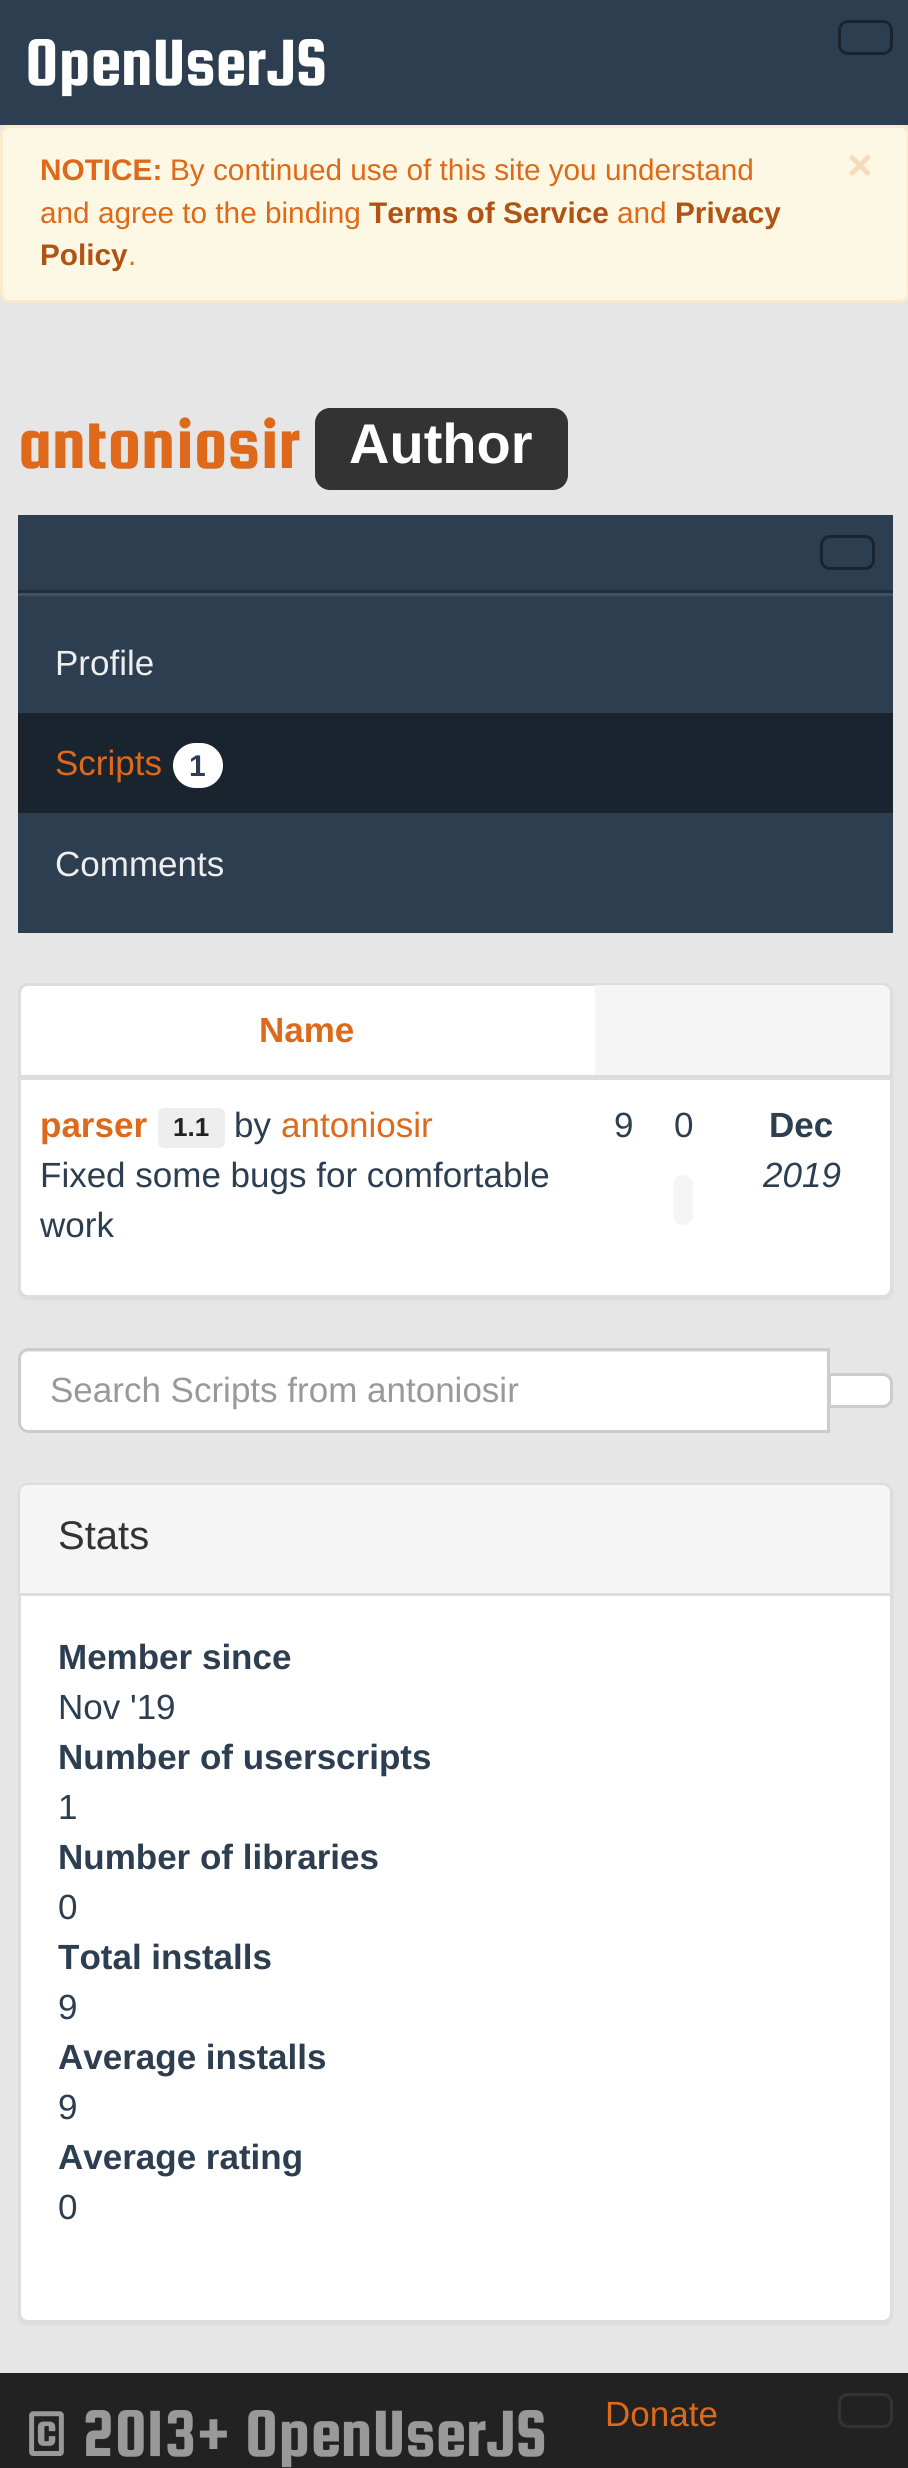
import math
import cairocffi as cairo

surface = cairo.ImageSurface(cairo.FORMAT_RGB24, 908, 2468)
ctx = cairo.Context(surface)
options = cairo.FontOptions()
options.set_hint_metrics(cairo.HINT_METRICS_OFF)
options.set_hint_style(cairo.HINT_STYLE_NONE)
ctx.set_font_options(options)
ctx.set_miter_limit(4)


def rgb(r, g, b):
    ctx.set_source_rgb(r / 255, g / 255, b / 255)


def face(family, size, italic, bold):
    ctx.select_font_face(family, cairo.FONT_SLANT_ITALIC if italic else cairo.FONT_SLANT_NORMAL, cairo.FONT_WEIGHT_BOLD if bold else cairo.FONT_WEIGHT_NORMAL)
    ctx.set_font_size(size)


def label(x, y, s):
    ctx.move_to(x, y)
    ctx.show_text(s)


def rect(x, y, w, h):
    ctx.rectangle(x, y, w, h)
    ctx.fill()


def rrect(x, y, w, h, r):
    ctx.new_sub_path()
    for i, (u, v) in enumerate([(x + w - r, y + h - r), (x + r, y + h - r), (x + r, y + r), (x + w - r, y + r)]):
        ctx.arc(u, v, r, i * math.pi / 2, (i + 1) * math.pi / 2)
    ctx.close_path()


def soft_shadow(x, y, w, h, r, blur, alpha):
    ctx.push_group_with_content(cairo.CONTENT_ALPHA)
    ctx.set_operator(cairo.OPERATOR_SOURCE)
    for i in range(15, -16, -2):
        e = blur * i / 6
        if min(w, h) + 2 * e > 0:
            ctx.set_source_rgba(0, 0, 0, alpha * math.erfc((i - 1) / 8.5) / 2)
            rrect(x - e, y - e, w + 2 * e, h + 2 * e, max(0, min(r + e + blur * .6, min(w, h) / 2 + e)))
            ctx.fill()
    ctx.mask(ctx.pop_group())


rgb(230, 230, 230)
ctx.paint()
rgb(44, 62, 80)
rect(0, 0, 908, 125)
face('Squada One', 70, 0, 0)
rgb(255, 255, 255)
label(25, 85, 'OpenUserJS')
rrect(839.5, 21.5, 52, 32, 8.5)
rgb(26, 36, 47)
ctx.set_line_width(3)
ctx.stroke()
rgb(252, 248, 227)
rrect(1.5, 126.5, 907, 175, 8.5)
ctx.fill_preserve()
rgb(250, 235, 204)
ctx.stroke()
face('Liberation Sans', 29.75, 0, 1)
rgb(223, 105, 26)
label(40, 180, 'NOTICE:')
face('Liberation Sans', 29.75, 0, 0)
label(170, 180, 'By continued use of this site you understand')
label(40, 223, 'and agree to the binding')
face('Liberation Sans', 29.75, 0, 1)
rgb(177, 83, 21)
label(369, 223, 'Terms of Service')
face('Liberation Sans', 29.75, 0, 0)
rgb(223, 105, 26)
label(617, 223, 'and')
face('Liberation Sans', 29.75, 0, 1)
rgb(177, 83, 21)
label(675, 223, 'Privacy')
label(40, 265, 'Policy')
face('Liberation Sans', 29.75, 0, 0)
rgb(223, 105, 26)
label(128, 265, '.')
face('Liberation Sans', 44, 0, 1)
rgb(246, 219, 187)
label(847, 180, '×')
face('Squada One', 75, 0, 0)
rgb(223, 105, 26)
label(18, 468, 'antoniosir')
rgb(51, 51, 51)
rrect(315, 408, 253, 82, 15)
ctx.fill()
face('Liberation Sans', 56, 0, 1)
rgb(255, 255, 255)
label(349, 463, 'Author')
rgb(44, 62, 80)
rect(18, 515, 875, 418)
rrect(821.5, 536.5, 52, 32, 8.5)
rgb(26, 36, 47)
ctx.stroke()
rgb(65, 81, 98)
rect(18, 593, 875, 3)
rgb(32, 45, 59)
rect(18, 590, 875, 3)
face('Liberation Sans', 35, 0, 0)
rgb(238, 238, 238)
label(55, 675, 'Profile')
rgb(26, 36, 47)
rect(18, 713, 875, 100)
rgb(223, 105, 26)
label(55, 775, 'Scripts')
rgb(255, 255, 255)
rrect(173, 743, 50, 45, 22.5)
ctx.fill()
face('Liberation Sans', 30, 0, 1)
rgb(44, 62, 80)
label(189, 776, '1')
face('Liberation Sans', 35, 0, 0)
rgb(238, 238, 238)
label(55, 876, 'Comments')
rgb(0, 0, 0)
soft_shadow(18, 985, 875, 315, 10, 1, 0.05)
rgb(255, 255, 255)
rrect(19.5, 984.5, 872, 312, 8.5)
ctx.fill_preserve()
rgb(221, 221, 221)
ctx.stroke()
rgb(245, 245, 245)
ctx.new_path()
ctx.move_to(713, 985)
ctx.line_to(882, 985)
ctx.curve_to(886.5, 985, 890, 988.5, 890, 993)
ctx.line_to(890, 1078)
ctx.line_to(713, 1078)
ctx.close_path()
ctx.fill()
rgb(221, 221, 221)
rect(18, 1075, 875, 5)
face('Liberation Sans', 35, 0, 1)
rgb(223, 105, 26)
label(259, 1042, 'Name')
rgb(245, 245, 245)
rect(595, 985, 118, 90)
rgb(223, 105, 26)
label(40, 1137, 'parser')
rgb(238, 238, 238)
rrect(158, 1108, 67, 40, 6)
ctx.fill()
face('Liberation Sans', 26, 0, 1)
rgb(34, 34, 34)
label(173, 1136, '1.1')
face('Liberation Sans', 35, 0, 0)
rgb(44, 62, 80)
label(234, 1137, 'by')
rgb(223, 105, 26)
label(281, 1137, 'antoniosir')
rgb(44, 62, 80)
label(40, 1187, 'Fixed some bugs for comfortable')
label(40, 1237, 'work')
label(614, 1137, '9')
label(674, 1137, '0')
rgb(245, 245, 245)
rrect(673, 1175, 20, 50, 10)
ctx.fill()
face('Liberation Sans', 35, 0, 1)
rgb(44, 62, 80)
label(769, 1137, 'Dec')
face('Liberation Sans', 35, 1, 0)
label(763, 1187, '2019')
rgb(255, 255, 255)
ctx.new_path()
ctx.move_to(28, 1348)
ctx.line_to(830, 1348)
ctx.line_to(830, 1433)
ctx.line_to(28, 1433)
ctx.curve_to(22.5, 1433, 18, 1428.5, 18, 1423)
ctx.line_to(18, 1358)
ctx.curve_to(18, 1352.5, 22.5, 1348, 28, 1348)
ctx.close_path()
ctx.fill()
rgb(236, 236, 236)
ctx.new_path()
ctx.move_to(28, 1352)
ctx.line_to(828, 1352)
ctx.line_to(828, 1350)
ctx.line_to(28, 1350)
ctx.curve_to(24, 1350, 20, 1354, 20, 1358)
ctx.line_to(20, 1360)
ctx.curve_to(20, 1356, 23, 1352, 28, 1352)
ctx.close_path()
ctx.fill()
ctx.new_path()
ctx.move_to(28, 1349.5)
ctx.line_to(828.5, 1349.5)
ctx.line_to(828.5, 1431.5)
ctx.line_to(28, 1431.5)
ctx.curve_to(23.5, 1431.5, 19.5, 1427.5, 19.5, 1423)
ctx.line_to(19.5, 1358)
ctx.curve_to(19.5, 1353.5, 23.5, 1349.5, 28, 1349.5)
ctx.close_path()
rgb(204, 204, 204)
ctx.stroke()
face('Liberation Sans', 35, 0, 0)
rgb(153, 153, 153)
label(50, 1402, 'Search Scripts from antoniosir')
rgb(255, 255, 255)
ctx.new_path()
ctx.move_to(829.5, 1374.5)
ctx.line_to(883, 1374.5)
ctx.curve_to(887.5, 1374.5, 891.5, 1378.5, 891.5, 1383)
ctx.line_to(891.5, 1398)
ctx.curve_to(891.5, 1402.5, 887.5, 1406.5, 883, 1406.5)
ctx.line_to(829.5, 1406.5)
ctx.close_path()
ctx.fill_preserve()
rgb(204, 204, 204)
ctx.stroke()
rgb(0, 0, 0)
soft_shadow(18, 1485, 875, 840, 10, 1, 0.05)
rgb(255, 255, 255)
rrect(19.5, 1484.5, 872, 837, 8.5)
ctx.fill_preserve()
rgb(221, 221, 221)
ctx.stroke()
rgb(245, 245, 245)
ctx.new_path()
ctx.move_to(28, 1485)
ctx.line_to(882, 1485)
ctx.curve_to(886.5, 1485, 890, 1488.5, 890, 1493)
ctx.line_to(890, 1595)
ctx.line_to(20, 1595)
ctx.line_to(20, 1493)
ctx.curve_to(20, 1488.5, 23.5, 1485, 28, 1485)
ctx.close_path()
ctx.fill()
rgb(221, 221, 221)
rect(20, 1593, 870, 3)
face('Liberation Sans', 40, 0, 0)
rgb(51, 51, 51)
label(58, 1549, 'Stats')
face('Liberation Sans', 35, 0, 1)
rgb(44, 62, 80)
label(58, 1669, 'Member since')
face('Liberation Sans', 35, 0, 0)
label(58, 1719, 'Nov \'19')
face('Liberation Sans', 35, 0, 1)
label(58, 1769, 'Number of userscripts')
face('Liberation Sans', 35, 0, 0)
label(58, 1819, '1')
face('Liberation Sans', 35, 0, 1)
label(58, 1869, 'Number of libraries')
face('Liberation Sans', 35, 0, 0)
label(58, 1919, '0')
face('Liberation Sans', 35, 0, 1)
label(58, 1969, 'Total installs')
face('Liberation Sans', 35, 0, 0)
label(58, 2019, '9')
face('Liberation Sans', 35, 0, 1)
label(58, 2069, 'Average installs')
face('Liberation Sans', 35, 0, 0)
label(58, 2119, '9')
face('Liberation Sans', 35, 0, 1)
label(58, 2169, 'Average rating')
face('Liberation Sans', 35, 0, 0)
label(58, 2219, '0')
rgb(34, 34, 34)
rect(0, 2373, 908, 95)
face('Squada One', 70, 0, 0)
rgb(153, 153, 153)
label(25, 2456, '© 2013+ OpenUserJS')
face('Liberation Sans', 35, 0, 0)
rgb(223, 105, 26)
label(605, 2426, 'Donate')
rrect(839.5, 2394.5, 52, 32, 8.5)
rgb(51, 51, 51)
ctx.stroke()
surface.write_to_png('render.png')
